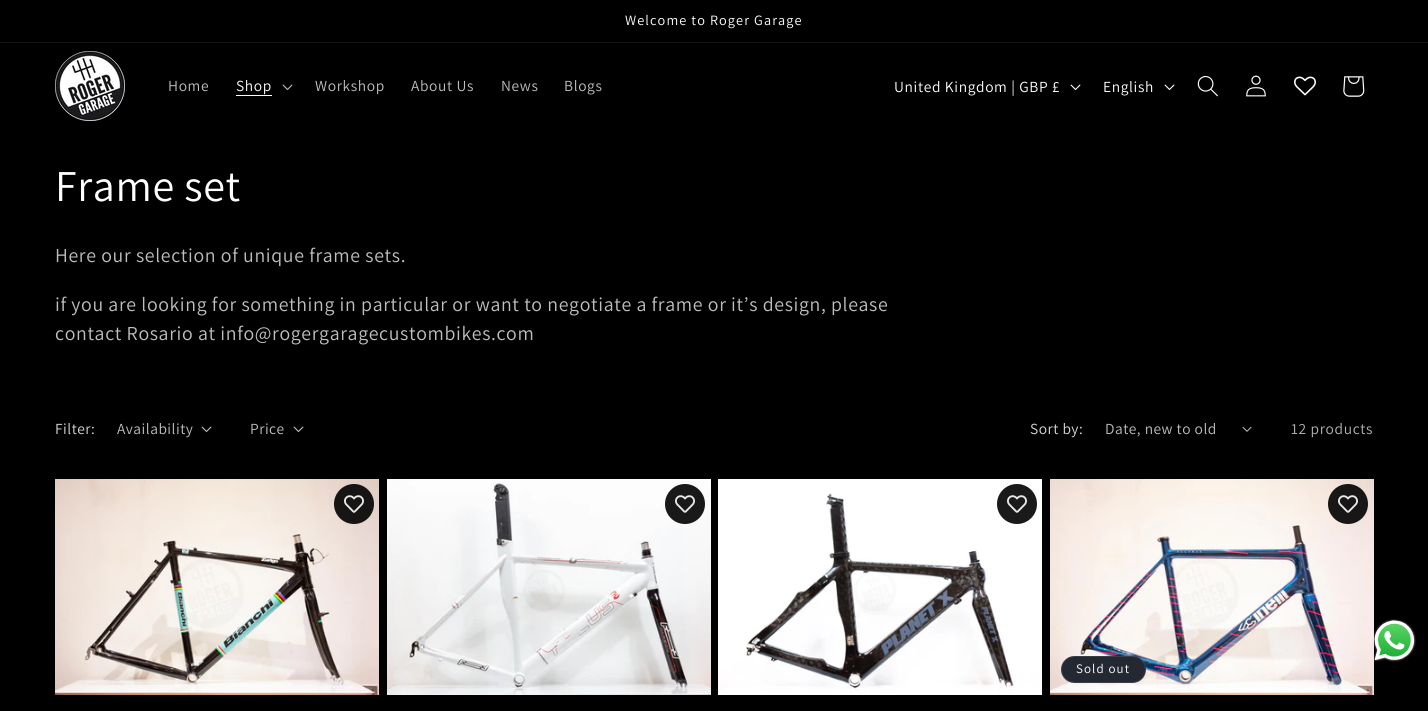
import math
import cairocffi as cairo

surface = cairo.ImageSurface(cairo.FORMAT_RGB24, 1428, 711)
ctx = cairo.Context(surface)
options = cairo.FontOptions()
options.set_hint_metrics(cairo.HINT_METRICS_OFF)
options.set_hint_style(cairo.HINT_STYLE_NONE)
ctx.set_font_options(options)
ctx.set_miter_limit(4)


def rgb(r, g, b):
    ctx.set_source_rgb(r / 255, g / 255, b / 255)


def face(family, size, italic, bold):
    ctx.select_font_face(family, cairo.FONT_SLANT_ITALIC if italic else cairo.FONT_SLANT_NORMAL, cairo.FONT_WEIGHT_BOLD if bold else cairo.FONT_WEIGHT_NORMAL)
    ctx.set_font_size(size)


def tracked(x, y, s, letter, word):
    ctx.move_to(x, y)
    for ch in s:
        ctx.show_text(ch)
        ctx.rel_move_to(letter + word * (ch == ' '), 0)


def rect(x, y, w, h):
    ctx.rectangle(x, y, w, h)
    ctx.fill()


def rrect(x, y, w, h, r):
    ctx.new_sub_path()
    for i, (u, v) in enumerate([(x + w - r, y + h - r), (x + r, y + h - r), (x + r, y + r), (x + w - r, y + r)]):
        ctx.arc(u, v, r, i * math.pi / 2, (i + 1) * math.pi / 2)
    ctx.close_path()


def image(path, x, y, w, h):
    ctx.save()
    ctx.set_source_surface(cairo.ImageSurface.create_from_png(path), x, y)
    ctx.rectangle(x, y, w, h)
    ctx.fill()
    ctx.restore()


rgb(0, 0, 0)
ctx.paint()
rgb(20, 20, 20)
rect(0, 42, 1428, 1)
face('Assistant', 14.25, 0, 0)
rgb(255, 255, 255)
tracked(625, 25, 'Welcome to Roger Garage', 1.1, 0)
image('image0.png', 55, 51, 70, 70)
face('Assistant', 15.4, 0, 0)
rgb(191, 191, 191)
tracked(168, 91, 'Home', 0.65, 0)
rgb(255, 255, 255)
tracked(236, 91, 'Shop', 0.65, 0)
rect(236, 95, 36, 1)
image('image1.png', 282, 84, 11, 6)
rgb(191, 191, 191)
tracked(315, 91, 'Workshop', 0.65, 0)
tracked(411, 91, 'About Us', 0.65, 0)
tracked(501, 91, 'News', 0.65, 0)
tracked(564, 91, 'Blogs', 0.65, 0)
rgb(255, 255, 255)
tracked(894, 92, 'United Kingdom | GBP £', 0.65, 0)
image('image2.png', 1070, 84, 11, 6)
tracked(1103, 92, 'English', 0.65, 0)
image('image2.png', 1164, 84, 11, 6)
image('image3.png', 1197, 75, 21, 22)
image('image4.png', 1246, 75, 20, 22)
image('image5.png', 1294, 76, 22, 20)
image('image6.png', 1343, 76, 22, 21)
face('Assistant', 44, 0, 0)
tracked(55, 201, 'Frame set', 0.65, 0)
face('Assistant', 19.8, 0, 0)
rgb(191, 191, 191)
tracked(55, 262, 'Here our selection of unique frame sets.', 0.65, 0)
tracked(55, 311, 'if you are looking for something in particular or want to negotiate a frame or it’s design, please', 0.65, 0)
tracked(55, 340, 'contact Rosario at info@rogergaragecustombikes.com', 0.65, 0)
face('Assistant', 15.4, 0, 0)
rgb(217, 217, 217)
tracked(55, 434, 'Filter:', 0.5, 0)
rgb(191, 191, 191)
tracked(117, 434, 'Availability', 0.5, 0)
image('image1.png', 201, 426, 11, 6)
tracked(250, 434, 'Price', 0.5, 0)
image('image1.png', 293, 426, 11, 6)
rgb(217, 217, 217)
tracked(1030, 434, 'Sort by:', 0.5, 0)
rgb(191, 191, 191)
tracked(1105, 434, 'Date, new to old', 0.5, 0)
image('image7.png', 1242, 426, 10, 6)
rgb(179, 179, 179)
tracked(1291, 434, '12 products', 0.65, 0)
image('image8.png', 55, 479, 324, 216)
ctx.set_source_rgba(0, 0, 0, 0.9)
ctx.arc(354, 504, 20, 0, 2 * math.pi)
ctx.fill()
image('image9.png', 344, 495, 20, 18)
image('image10.png', 387, 479, 324, 216)
ctx.arc(685, 504, 20, 0, 2 * math.pi)
ctx.fill()
image('image11.png', 675, 495, 20, 18)
image('image12.png', 718, 479, 324, 216)
rgb(26, 26, 26)
ctx.arc(1017, 504, 20, 0, 2 * math.pi)
ctx.fill()
image('image13.png', 1007, 495, 20, 18)
image('image15.png', 1050, 479, 324, 216)
ctx.set_source_rgba(0, 0, 0, 0.9)
ctx.arc(1348, 504, 20, 0, 2 * math.pi)
ctx.fill()
image('image14.png', 1338, 495, 20, 18)
rgb(36, 40, 51)
rrect(1061, 656, 85, 27, 13.5)
ctx.fill()
rrect(1061.5, 656.5, 84, 26, 13)
ctx.set_source_rgba(1, 1, 1, 0.1)
ctx.set_line_width(1)
ctx.stroke()
face('Assistant', 13, 0, 0)
rgb(255, 255, 255)
tracked(1076, 673, 'Sold out', 1.1, 0)
image('image16.png', 1373, 619, 43, 43)
surface.write_to_png('render.png')
